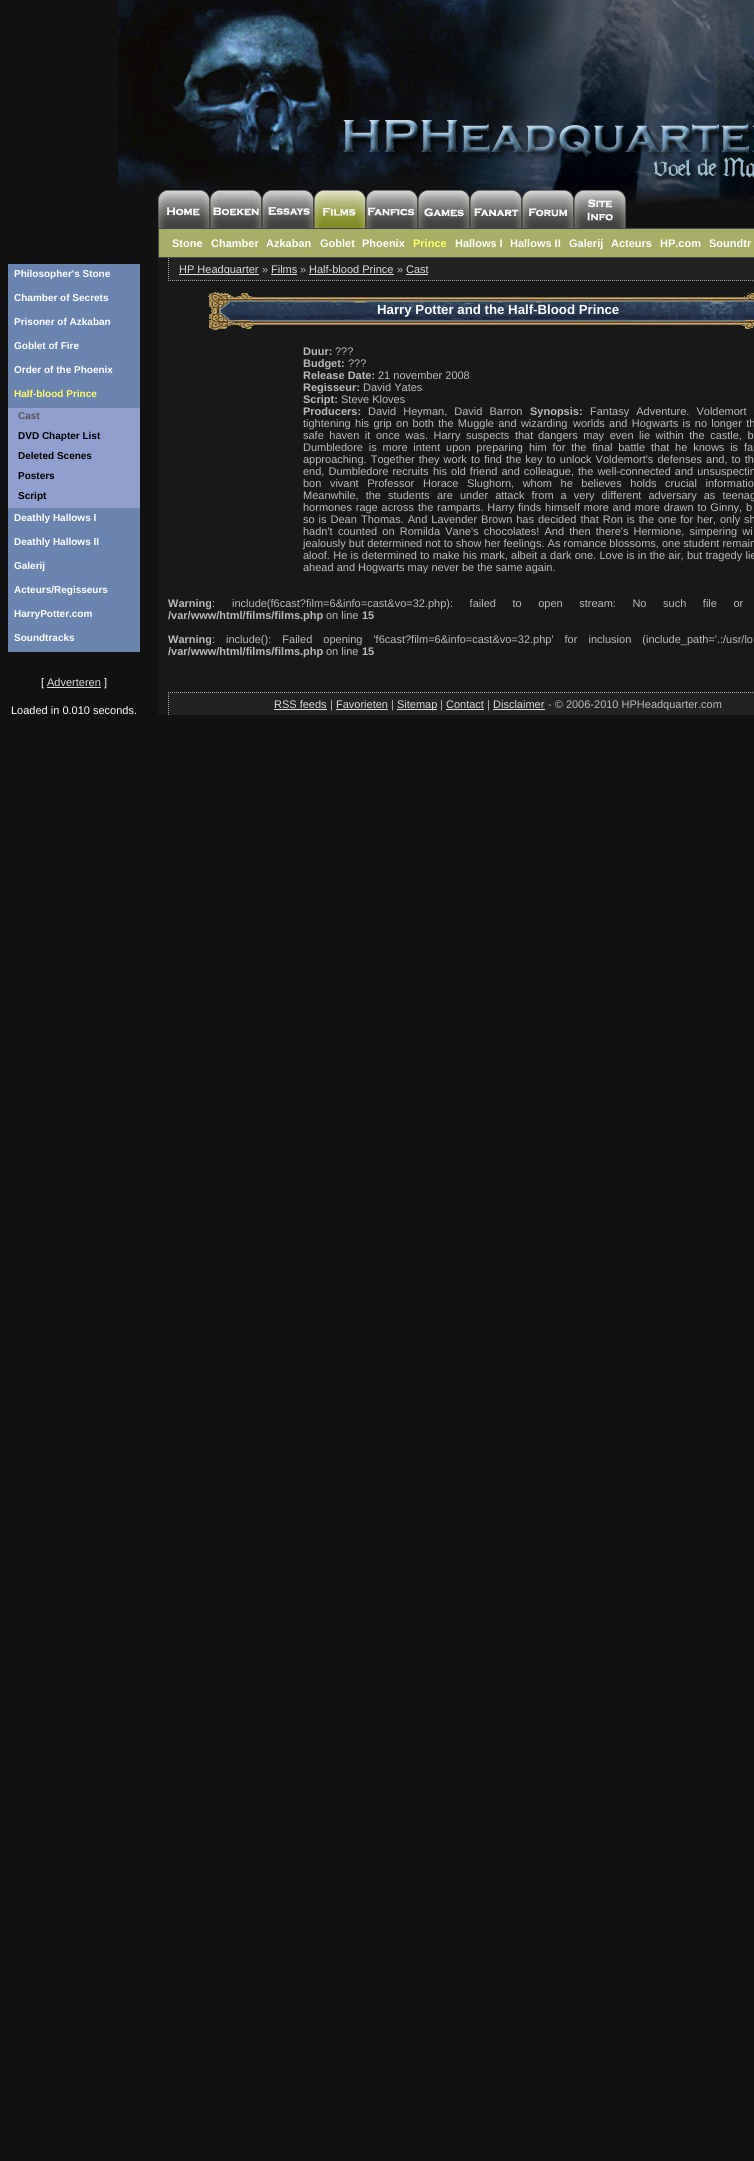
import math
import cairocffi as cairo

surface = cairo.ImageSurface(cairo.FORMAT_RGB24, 754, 2161)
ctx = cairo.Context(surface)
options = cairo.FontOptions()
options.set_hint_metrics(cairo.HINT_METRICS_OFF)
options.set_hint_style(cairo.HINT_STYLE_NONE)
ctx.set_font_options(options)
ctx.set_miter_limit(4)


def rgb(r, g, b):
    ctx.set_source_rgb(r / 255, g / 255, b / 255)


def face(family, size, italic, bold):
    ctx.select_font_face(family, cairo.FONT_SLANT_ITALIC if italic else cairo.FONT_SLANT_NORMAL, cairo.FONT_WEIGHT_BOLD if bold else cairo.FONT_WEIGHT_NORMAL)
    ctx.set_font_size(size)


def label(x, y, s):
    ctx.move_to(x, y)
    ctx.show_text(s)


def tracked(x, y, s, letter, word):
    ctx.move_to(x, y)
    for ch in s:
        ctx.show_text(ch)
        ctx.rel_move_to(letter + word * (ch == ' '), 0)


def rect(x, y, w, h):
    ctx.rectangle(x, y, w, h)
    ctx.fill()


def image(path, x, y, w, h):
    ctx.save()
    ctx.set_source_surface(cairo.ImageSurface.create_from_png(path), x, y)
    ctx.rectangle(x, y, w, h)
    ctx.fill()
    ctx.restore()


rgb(17, 17, 17)
ctx.paint()
image('image0.png', 118, 0, 636, 208)
image('image1.png', 158, 190, 52, 38)
image('image2.png', 210, 190, 52, 38)
image('image3.png', 262, 190, 52, 38)
image('image4.png', 366, 190, 52, 38)
image('image5.png', 418, 190, 52, 38)
image('image6.png', 470, 190, 52, 38)
image('image7.png', 522, 190, 52, 38)
image('image8.png', 574, 190, 52, 38)
image('image9.png', 314, 190, 52, 38)
rgb(167, 174, 101)
ctx.rectangle(158.5, 228.5, 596, 29)
ctx.fill_preserve()
rgb(67, 67, 67)
ctx.set_line_width(1)
ctx.stroke()
face('Liberation Sans', 11, 0, 1)
rgb(255, 255, 255)
label(172, 247, 'Stone')
label(211, 247, 'Chamber')
label(266, 247, 'Azkaban')
label(320, 247, 'Goblet')
label(362, 247, 'Phoenix')
rgb(255, 255, 102)
label(413, 247, 'Prince')
rgb(255, 255, 255)
label(455, 247, 'Hallows I')
label(510, 247, 'Hallows II')
label(569, 247, 'Galerij')
label(611, 247, 'Acteurs')
label(660, 247, 'HP.com')
label(709, 247, 'Soundtr')
rgb(106, 132, 176)
rect(8, 264, 132, 388)
face('Liberation Sans', 10, 0, 1)
rgb(255, 255, 255)
label(14, 277, 'Philosopher\'s Stone')
label(14, 301, 'Chamber of Secrets')
label(14, 325, 'Prisoner of Azkaban')
label(14, 349, 'Goblet of Fire')
label(14, 373, 'Order of the Phoenix')
rgb(255, 255, 102)
label(14, 397, 'Half-blood Prince')
rgb(144, 159, 207)
rect(8, 408, 132, 100)
rgb(85, 85, 85)
label(18, 419, 'Cast')
rgb(0, 0, 0)
label(18, 439, 'DVD Chapter List')
label(18, 459, 'Deleted Scenes')
label(18, 479, 'Posters')
label(18, 499, 'Script')
rgb(255, 255, 255)
label(14, 521, 'Deathly Hallows I')
label(14, 545, 'Deathly Hallows II')
label(14, 569, 'Galerij')
label(14, 593, 'Acteurs/Regisseurs')
label(14, 617, 'HarryPotter.com')
label(14, 641, 'Soundtracks')
face('Liberation Sans', 11, 0, 0)
label(41, 686, '[')
rgb(221, 221, 221)
label(47, 686, 'Adverteren')
rect(47, 687, 54, 1)
rgb(255, 255, 255)
label(104, 686, ']')
label(11, 714, 'Loaded in 0.010 seconds.')
rgb(24, 24, 24)
rect(158, 258, 596, 457)
rgb(34, 34, 34)
rect(168, 258, 586, 23)
ctx.new_path()
ctx.move_to(168, 280.5)
ctx.line_to(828, 280.5)
rgb(170, 170, 170)
ctx.set_dash([1, 1])
ctx.stroke()
ctx.new_path()
ctx.move_to(168.5, 258)
ctx.line_to(168.5, 281)
ctx.stroke()
rgb(221, 221, 221)
rect(179, 274, 80, 1)
label(179, 273, 'HP Headquarter')
rgb(187, 187, 187)
label(262, 273, '»')
rgb(221, 221, 221)
label(271, 273, 'Films')
rect(271, 274, 26, 1)
rgb(187, 187, 187)
label(300, 273, '»')
rgb(221, 221, 221)
label(309, 273, 'Half-blood Prince')
rect(309, 274, 85, 1)
rgb(187, 187, 187)
label(397, 273, '»')
rgb(221, 221, 221)
label(406, 273, 'Cast')
rect(406, 274, 22, 1)
image('image10.png', 208, 292, 546, 38)
face('Liberation Sans', 13.25, 0, 1)
rgb(255, 255, 255)
label(377, 314, 'Harry Potter and the Half-Blood Prince')
face('Liberation Sans', 11, 0, 1)
rgb(187, 187, 187)
label(303, 355, 'Duur:')
face('Liberation Sans', 11, 0, 0)
label(335, 355, '???')
face('Liberation Sans', 11, 0, 1)
label(303, 367, 'Budget:')
face('Liberation Sans', 11, 0, 0)
label(348, 367, '???')
face('Liberation Sans', 11, 0, 1)
label(303, 379, 'Release Date:')
face('Liberation Sans', 11, 0, 0)
label(378, 379, '21 november 2008')
face('Liberation Sans', 11, 0, 1)
label(303, 391, 'Regisseur:')
face('Liberation Sans', 11, 0, 0)
label(363, 391, 'David Yates')
face('Liberation Sans', 11, 0, 1)
label(303, 403, 'Script:')
face('Liberation Sans', 11, 0, 0)
label(341, 403, 'Steve Kloves')
face('Liberation Sans', 11, 0, 1)
label(303, 415, 'Producers:')
face('Liberation Sans', 11, 0, 0)
tracked(368, 415, 'David Heyman, David Barron', 0, 4)
face('Liberation Sans', 11, 0, 1)
label(530, 415, 'Synopsis:')
face('Liberation Sans', 11, 0, 0)
tracked(590, 415, 'Fantasy Adventure. Voldemort', 0, 4)
tracked(303, 427, 'tightening his grip on both the Muggle and wizarding', 0, 1.25)
tracked(573, 427, 'worlds and Hogwarts is no longer th', 0, 1.25)
tracked(303, 439, 'safe haven it once was. Harry suspects that', 0, 2.5)
tracked(538, 439, 'dangers may even lie within the castle, b', 0, 2.5)
tracked(303, 451, 'Dumbledore is more intent upon preparing', 0, 2.75)
tracked(529, 451, 'him for the final battle that he knows is fa', 0, 2.75)
tracked(303, 463, 'approaching. Together they work', 0, 1)
tracked(471, 463, 'to find the key to unlock Voldemort\'s defenses and, to th', 0, 1)
tracked(303, 475, 'end, Dumbledore recruits', 0, 1)
tracked(433, 475, 'his old friend and colleague, the well-connected and unsuspectin', 0, 1)
tracked(303, 487, 'bon vivant Professor', 0, 5.5)
tracked(423, 487, 'Horace Slughorn, whom he believes holds crucial informatio', 0, 5.5)
tracked(303, 499, 'Meanwhile, the students', 0, 4)
tracked(437, 499, 'are under attack from a very different adversary as teenag', 0, 4)
tracked(303, 511, 'hormones rage across', 0, 0.75)
tracked(418, 511, 'the ramparts. Harry finds himself more and more drawn to Ginny, b', 0, 0.75)
tracked(303, 523, 'so is Dean', 0, 0.9)
tracked(361, 523, 'Thomas. And Lavender Brown has decided that Ron is the one for her, only sh', 0, 0.9)
label(303, 535, 'hadn\'t')
tracked(338, 535, 'counted on Romilda Vane\'s chocolates! And then there\'s Hermione, simpering wi', 0, 2.1)
label(303, 547, 'jealously but determined not to show her feelings. As romance blossoms, one student remain')
tracked(303, 559, 'aloof. He is determined to make his mark, albeit a dark one. Love is in the air, but tragedy lie', 0, 0.25)
label(303, 571, 'ahead and Hogwarts may never be the same again.')
face('Liberation Sans', 11, 0, 1)
label(168, 607, 'Warning')
face('Liberation Sans', 11, 0, 0)
label(212, 607, ':')
tracked(232, 607, 'include(f6cast?film=6&info=cast&vo=32.php): failed to open stream: No such file or', 0, 13.5)
face('Liberation Sans', 11, 0, 1)
label(168, 619, '/var/www/html/films/films.php')
face('Liberation Sans', 11, 0, 0)
label(326, 619, 'on line')
face('Liberation Sans', 11, 0, 1)
label(362, 619, '15')
label(168, 643, 'Warning')
face('Liberation Sans', 11, 0, 0)
label(212, 643, ':')
tracked(226, 643, 'include(): Failed opening \'f6cast?film=6&info=cast&vo=32.php\' for inclusion (include_path=\'.:/usr/lo', 0, 8)
face('Liberation Sans', 11, 0, 1)
label(168, 655, '/var/www/html/films/films.php')
face('Liberation Sans', 11, 0, 0)
label(326, 655, 'on line')
face('Liberation Sans', 11, 0, 1)
label(362, 655, '15')
rgb(34, 34, 34)
rect(168, 692, 586, 23)
ctx.new_path()
ctx.move_to(168, 692.5)
ctx.line_to(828, 692.5)
rgb(170, 170, 170)
ctx.stroke()
ctx.new_path()
ctx.move_to(168.5, 692)
ctx.line_to(168.5, 715)
ctx.stroke()
face('Liberation Sans', 11, 0, 0)
rgb(221, 221, 221)
label(274, 708, 'RSS feeds')
rect(274, 709, 53, 1)
rgb(187, 187, 187)
label(330, 708, '|')
rgb(221, 221, 221)
label(336, 708, 'Favorieten')
rect(336, 709, 52, 1)
rgb(187, 187, 187)
label(391, 708, '|')
rgb(221, 221, 221)
rect(397, 709, 40, 1)
label(397, 708, 'Sitemap')
rgb(187, 187, 187)
label(440, 708, '|')
rgb(221, 221, 221)
label(446, 708, 'Contact')
rect(446, 709, 38, 1)
rgb(187, 187, 187)
label(487, 708, '|')
rgb(221, 221, 221)
label(493, 708, 'Disclaimer')
rect(493, 709, 52, 1)
rgb(187, 187, 187)
label(548, 708, '- © 2006-2010 HPHeadquarter.com')
surface.write_to_png('render.png')
